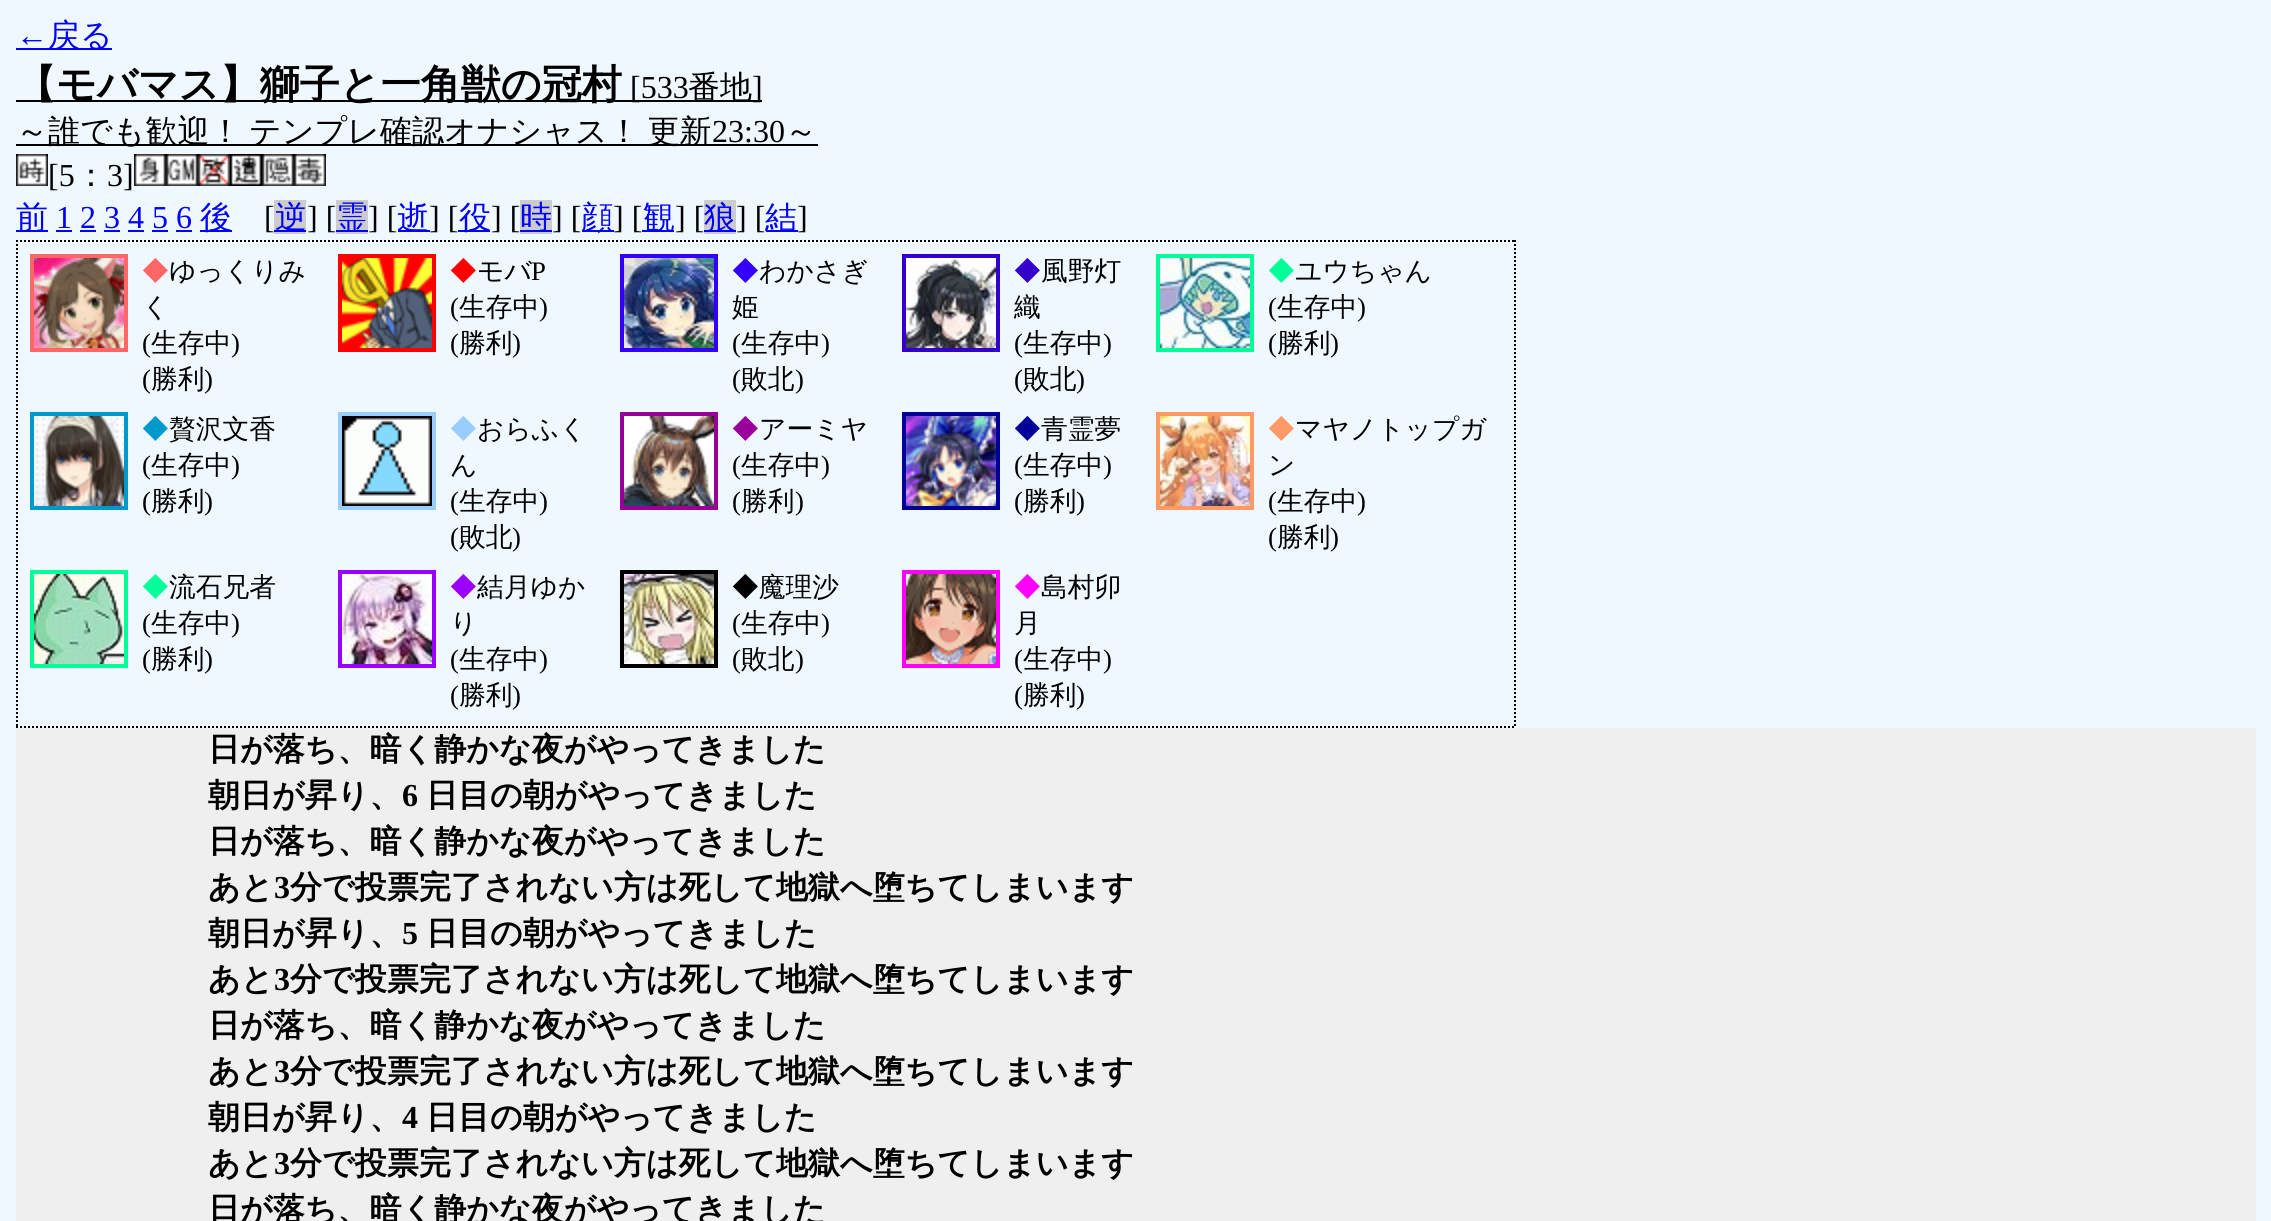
import math
import cairocffi as cairo

surface = cairo.ImageSurface(cairo.FORMAT_RGB24, 2271, 1221)
ctx = cairo.Context(surface)
options = cairo.FontOptions()
options.set_hint_metrics(cairo.HINT_METRICS_OFF)
options.set_hint_style(cairo.HINT_STYLE_NONE)
ctx.set_font_options(options)
ctx.set_miter_limit(4)


def rgb(r, g, b):
    ctx.set_source_rgb(r / 255, g / 255, b / 255)


def face(family, size, italic, bold):
    ctx.select_font_face(family, cairo.FONT_SLANT_ITALIC if italic else cairo.FONT_SLANT_NORMAL, cairo.FONT_WEIGHT_BOLD if bold else cairo.FONT_WEIGHT_NORMAL)
    ctx.set_font_size(size)


def label(x, y, s):
    ctx.move_to(x, y)
    ctx.show_text(s)


def tracked(x, y, s, letter, word):
    ctx.move_to(x, y)
    for ch in s:
        ctx.show_text(ch)
        ctx.rel_move_to(letter + word * (ch == ' '), 0)


def rect(x, y, w, h):
    ctx.rectangle(x, y, w, h)
    ctx.fill()


def image(path, x, y, w, h):
    ctx.save()
    ctx.set_source_surface(cairo.ImageSurface.create_from_png(path), x, y)
    ctx.rectangle(x, y, w, h)
    ctx.fill()
    ctx.restore()


rgb(240, 248, 255)
ctx.paint()
face('Liberation Serif', 32, 0, 0)
rgb(0, 0, 255)
label(16, 46, '←')
rect(16, 48, 96, 2)
face('WenQuanYi Zen Hei Medium', 32, 0, 0)
label(48, 46, '戻る')
rgb(0, 0, 0)
rect(16, 100, 746, 2)
face('WenQuanYi Zen Hei', 40, 0, 1)
label(16, 98, '【モバマス】獅子と一角獣の冠村')
face('Liberation Serif', 32, 0, 0)
label(630, 98, '[533')
face('WenQuanYi Zen Hei Medium', 32, 0, 0)
label(688, 98, '番地')
face('Liberation Serif', 32, 0, 0)
label(752, 98, ']')
rect(16, 144, 802, 2)
face('WenQuanYi Zen Hei Medium', 32, 0, 0)
tracked(16, 142, '～誰でも歓迎！ テンプレ確認オナシャス！ 更新', 0, -2)
face('Liberation Serif', 32, 0, 0)
label(712, 142, '23:30')
face('WenQuanYi Zen Hei Medium', 32, 0, 0)
label(785, 142, '～')
image('image0.png', 16, 154, 32, 32)
face('Liberation Serif', 32, 0, 0)
label(48, 186, '[5')
face('WenQuanYi Zen Hei Medium', 32, 0, 0)
label(75, 186, '：')
face('Liberation Serif', 32, 0, 0)
label(107, 186, '3]')
image('image1.png', 134, 154, 32, 32)
image('image2.png', 166, 154, 32, 32)
image('image3.png', 198, 154, 32, 32)
image('image4.png', 230, 154, 32, 32)
image('image5.png', 262, 154, 32, 32)
image('image6.png', 294, 154, 32, 32)
rgb(0, 0, 255)
rect(16, 230, 32, 2)
face('WenQuanYi Zen Hei Medium', 32, 0, 0)
label(16, 228, '前')
face('Liberation Serif', 32, 0, 0)
label(56, 228, '1 2 3 4 5 6')
rect(56, 230, 16, 2)
rect(200, 230, 32, 2)
face('WenQuanYi Zen Hei Medium', 32, 0, 0)
label(200, 228, '後')
face('Liberation Serif', 32, 0, 0)
rgb(0, 0, 0)
label(264, 228, '[')
rgb(204, 204, 204)
rect(274, 200, 32, 34)
rgb(0, 0, 255)
rect(274, 230, 32, 2)
face('WenQuanYi Zen Hei Medium', 32, 0, 0)
label(275, 228, '逆')
face('Liberation Serif', 32, 0, 0)
rgb(0, 0, 0)
label(307, 228, '] [')
rgb(204, 204, 204)
rect(336, 200, 32, 34)
rgb(0, 0, 255)
rect(336, 230, 32, 2)
face('WenQuanYi Zen Hei Medium', 32, 0, 0)
label(336, 228, '霊')
face('Liberation Serif', 32, 0, 0)
rgb(0, 0, 0)
label(368, 228, '] [')
rgb(0, 0, 255)
rect(398, 230, 32, 2)
face('WenQuanYi Zen Hei Medium', 32, 0, 0)
label(397, 228, '逝')
face('Liberation Serif', 32, 0, 0)
rgb(0, 0, 0)
label(429, 228, '] [')
rgb(0, 0, 255)
rect(458, 230, 32, 2)
face('WenQuanYi Zen Hei Medium', 32, 0, 0)
label(459, 228, '役')
face('Liberation Serif', 32, 0, 0)
rgb(0, 0, 0)
label(491, 228, '] [')
rgb(204, 204, 204)
rect(520, 200, 32, 34)
rgb(0, 0, 255)
rect(520, 230, 32, 2)
face('WenQuanYi Zen Hei Medium', 32, 0, 0)
label(520, 228, '時')
face('Liberation Serif', 32, 0, 0)
rgb(0, 0, 0)
label(552, 228, '] [')
rgb(0, 0, 255)
rect(582, 230, 32, 2)
face('WenQuanYi Zen Hei Medium', 32, 0, 0)
label(581, 228, '顔')
face('Liberation Serif', 32, 0, 0)
rgb(0, 0, 0)
label(613, 228, '] [')
rgb(0, 0, 255)
rect(642, 230, 32, 2)
face('WenQuanYi Zen Hei Medium', 32, 0, 0)
label(643, 228, '観')
face('Liberation Serif', 32, 0, 0)
rgb(0, 0, 0)
label(675, 228, '] [')
rgb(204, 204, 204)
rect(704, 200, 32, 34)
rgb(0, 0, 255)
rect(704, 230, 32, 2)
face('WenQuanYi Zen Hei Medium', 32, 0, 0)
label(704, 228, '狼')
face('Liberation Serif', 32, 0, 0)
rgb(0, 0, 0)
label(736, 228, '] [')
rgb(0, 0, 255)
rect(766, 230, 32, 2)
face('WenQuanYi Zen Hei Medium', 32, 0, 0)
label(765, 228, '結')
face('Liberation Serif', 32, 0, 0)
rgb(0, 0, 0)
label(797, 228, ']')
rgb(0, 0, 255)
rect(80, 230, 16, 2)
rect(104, 230, 16, 2)
rect(128, 230, 16, 2)
rect(152, 230, 16, 2)
rect(176, 230, 16, 2)
ctx.new_path()
ctx.move_to(16, 241)
ctx.line_to(1516, 241)
rgb(0, 0, 0)
ctx.set_dash([2, 2])
ctx.stroke()
ctx.new_path()
ctx.move_to(1515, 240)
ctx.line_to(1515, 728)
ctx.stroke()
ctx.new_path()
ctx.move_to(16, 727)
ctx.line_to(1516, 727)
ctx.stroke()
ctx.new_path()
ctx.move_to(17, 240)
ctx.line_to(17, 728)
ctx.stroke()
ctx.rectangle(32, 256, 94, 94)
rgb(255, 102, 102)
ctx.set_line_width(4)
ctx.set_dash([])
ctx.stroke()
image('image7.png', 34, 258, 90, 90)
face('WenQuanYi Zen Hei Medium', 26.75, 0, 0)
label(142, 280, '◆')
rgb(0, 0, 0)
label(169, 280, 'ゆっくりみ')
label(142, 316, 'く')
face('Liberation Serif', 26.75, 0, 0)
label(142, 352, '(')
face('WenQuanYi Zen Hei Medium', 26.75, 0, 0)
label(151, 352, '生存中')
face('Liberation Serif', 26.75, 0, 0)
label(231, 352, ')')
label(142, 388, '(')
face('WenQuanYi Zen Hei Medium', 26.75, 0, 0)
label(151, 388, '勝利')
face('Liberation Serif', 26.75, 0, 0)
label(204, 388, ')')
ctx.rectangle(340, 256, 94, 94)
rgb(255, 0, 0)
ctx.stroke()
image('image8.png', 342, 258, 90, 90)
face('WenQuanYi Zen Hei Medium', 26.75, 0, 0)
label(450, 280, '◆')
rgb(0, 0, 0)
label(477, 280, 'モバ')
face('Liberation Serif', 26.75, 0, 0)
label(531, 280, 'P')
label(450, 316, '(')
face('WenQuanYi Zen Hei Medium', 26.75, 0, 0)
label(459, 316, '生存中')
face('Liberation Serif', 26.75, 0, 0)
label(539, 316, ')')
label(450, 352, '(')
face('WenQuanYi Zen Hei Medium', 26.75, 0, 0)
label(459, 352, '勝利')
face('Liberation Serif', 26.75, 0, 0)
label(512, 352, ')')
ctx.rectangle(622, 256, 94, 94)
rgb(51, 0, 255)
ctx.stroke()
image('image9.png', 624, 258, 90, 90)
face('WenQuanYi Zen Hei Medium', 26.75, 0, 0)
label(732, 280, '◆')
rgb(0, 0, 0)
label(759, 280, 'わかさぎ')
label(732, 316, '姫')
face('Liberation Serif', 26.75, 0, 0)
label(732, 352, '(')
face('WenQuanYi Zen Hei Medium', 26.75, 0, 0)
label(741, 352, '生存中')
face('Liberation Serif', 26.75, 0, 0)
label(821, 352, ')')
label(732, 388, '(')
face('WenQuanYi Zen Hei Medium', 26.75, 0, 0)
label(741, 388, '敗北')
face('Liberation Serif', 26.75, 0, 0)
label(795, 388, ')')
ctx.rectangle(904, 256, 94, 94)
rgb(51, 0, 204)
ctx.stroke()
image('image10.png', 906, 258, 90, 90)
face('WenQuanYi Zen Hei Medium', 26.75, 0, 0)
label(1014, 280, '◆')
rgb(0, 0, 0)
label(1041, 280, '風野灯')
label(1014, 316, '織')
face('Liberation Serif', 26.75, 0, 0)
label(1014, 352, '(')
face('WenQuanYi Zen Hei Medium', 26.75, 0, 0)
label(1023, 352, '生存中')
face('Liberation Serif', 26.75, 0, 0)
label(1103, 352, ')')
label(1014, 388, '(')
face('WenQuanYi Zen Hei Medium', 26.75, 0, 0)
label(1023, 388, '敗北')
face('Liberation Serif', 26.75, 0, 0)
label(1076, 388, ')')
ctx.rectangle(1158, 256, 94, 94)
rgb(0, 255, 153)
ctx.stroke()
image('image11.png', 1160, 258, 90, 90)
face('WenQuanYi Zen Hei Medium', 26.75, 0, 0)
label(1268, 280, '◆')
rgb(0, 0, 0)
label(1295, 280, 'ユウちゃん')
face('Liberation Serif', 26.75, 0, 0)
label(1268, 316, '(')
face('WenQuanYi Zen Hei Medium', 26.75, 0, 0)
label(1277, 316, '生存中')
face('Liberation Serif', 26.75, 0, 0)
label(1357, 316, ')')
label(1268, 352, '(')
face('WenQuanYi Zen Hei Medium', 26.75, 0, 0)
label(1277, 352, '勝利')
face('Liberation Serif', 26.75, 0, 0)
label(1330, 352, ')')
ctx.rectangle(32, 414, 94, 94)
rgb(0, 153, 204)
ctx.stroke()
image('image12.png', 34, 416, 90, 90)
face('WenQuanYi Zen Hei Medium', 26.75, 0, 0)
label(142, 438, '◆')
rgb(0, 0, 0)
label(169, 438, '贅沢文香')
face('Liberation Serif', 26.75, 0, 0)
label(142, 474, '(')
face('WenQuanYi Zen Hei Medium', 26.75, 0, 0)
label(151, 474, '生存中')
face('Liberation Serif', 26.75, 0, 0)
label(231, 474, ')')
label(142, 510, '(')
face('WenQuanYi Zen Hei Medium', 26.75, 0, 0)
label(151, 510, '勝利')
face('Liberation Serif', 26.75, 0, 0)
label(204, 510, ')')
ctx.rectangle(340, 414, 94, 94)
rgb(153, 204, 255)
ctx.stroke()
image('image13.png', 342, 416, 90, 90)
face('WenQuanYi Zen Hei Medium', 26.75, 0, 0)
label(450, 438, '◆')
rgb(0, 0, 0)
label(477, 438, 'おらふく')
label(450, 474, 'ん')
face('Liberation Serif', 26.75, 0, 0)
label(450, 510, '(')
face('WenQuanYi Zen Hei Medium', 26.75, 0, 0)
label(459, 510, '生存中')
face('Liberation Serif', 26.75, 0, 0)
label(539, 510, ')')
label(450, 546, '(')
face('WenQuanYi Zen Hei Medium', 26.75, 0, 0)
label(459, 546, '敗北')
face('Liberation Serif', 26.75, 0, 0)
label(512, 546, ')')
ctx.rectangle(622, 414, 94, 94)
rgb(153, 0, 153)
ctx.stroke()
image('image14.png', 624, 416, 90, 90)
face('WenQuanYi Zen Hei Medium', 26.75, 0, 0)
label(732, 438, '◆')
rgb(0, 0, 0)
label(759, 438, 'アーミヤ')
face('Liberation Serif', 26.75, 0, 0)
label(732, 474, '(')
face('WenQuanYi Zen Hei Medium', 26.75, 0, 0)
label(741, 474, '生存中')
face('Liberation Serif', 26.75, 0, 0)
label(821, 474, ')')
label(732, 510, '(')
face('WenQuanYi Zen Hei Medium', 26.75, 0, 0)
label(741, 510, '勝利')
face('Liberation Serif', 26.75, 0, 0)
label(795, 510, ')')
ctx.rectangle(904, 414, 94, 94)
rgb(0, 0, 153)
ctx.stroke()
image('image15.png', 906, 416, 90, 90)
face('WenQuanYi Zen Hei Medium', 26.75, 0, 0)
label(1014, 438, '◆')
rgb(0, 0, 0)
label(1041, 438, '青霊夢')
face('Liberation Serif', 26.75, 0, 0)
label(1014, 474, '(')
face('WenQuanYi Zen Hei Medium', 26.75, 0, 0)
label(1023, 474, '生存中')
face('Liberation Serif', 26.75, 0, 0)
label(1103, 474, ')')
label(1014, 510, '(')
face('WenQuanYi Zen Hei Medium', 26.75, 0, 0)
label(1023, 510, '勝利')
face('Liberation Serif', 26.75, 0, 0)
label(1076, 510, ')')
ctx.rectangle(1158, 414, 94, 94)
rgb(255, 153, 102)
ctx.stroke()
image('image16.png', 1160, 416, 90, 90)
face('WenQuanYi Zen Hei Medium', 26.75, 0, 0)
label(1268, 438, '◆')
rgb(0, 0, 0)
label(1295, 438, 'マヤノトップガ')
label(1268, 474, 'ン')
face('Liberation Serif', 26.75, 0, 0)
label(1268, 510, '(')
face('WenQuanYi Zen Hei Medium', 26.75, 0, 0)
label(1277, 510, '生存中')
face('Liberation Serif', 26.75, 0, 0)
label(1357, 510, ')')
label(1268, 546, '(')
face('WenQuanYi Zen Hei Medium', 26.75, 0, 0)
label(1277, 546, '勝利')
face('Liberation Serif', 26.75, 0, 0)
label(1330, 546, ')')
ctx.rectangle(32, 572, 94, 94)
rgb(0, 255, 153)
ctx.stroke()
image('image17.png', 34, 574, 90, 90)
face('WenQuanYi Zen Hei Medium', 26.75, 0, 0)
label(142, 596, '◆')
rgb(0, 0, 0)
label(169, 596, '流石兄者')
face('Liberation Serif', 26.75, 0, 0)
label(142, 632, '(')
face('WenQuanYi Zen Hei Medium', 26.75, 0, 0)
label(151, 632, '生存中')
face('Liberation Serif', 26.75, 0, 0)
label(231, 632, ')')
label(142, 668, '(')
face('WenQuanYi Zen Hei Medium', 26.75, 0, 0)
label(151, 668, '勝利')
face('Liberation Serif', 26.75, 0, 0)
label(204, 668, ')')
ctx.rectangle(340, 572, 94, 94)
rgb(153, 0, 255)
ctx.stroke()
image('image18.png', 342, 574, 90, 90)
face('WenQuanYi Zen Hei Medium', 26.75, 0, 0)
label(450, 596, '◆')
rgb(0, 0, 0)
label(477, 596, '結月ゆか')
label(450, 632, 'り')
face('Liberation Serif', 26.75, 0, 0)
label(450, 668, '(')
face('WenQuanYi Zen Hei Medium', 26.75, 0, 0)
label(459, 668, '生存中')
face('Liberation Serif', 26.75, 0, 0)
label(539, 668, ')')
label(450, 704, '(')
face('WenQuanYi Zen Hei Medium', 26.75, 0, 0)
label(459, 704, '勝利')
face('Liberation Serif', 26.75, 0, 0)
label(512, 704, ')')
ctx.rectangle(622, 572, 94, 94)
ctx.stroke()
image('image19.png', 624, 574, 90, 90)
face('WenQuanYi Zen Hei Medium', 26.75, 0, 0)
label(732, 596, '◆魔理沙')
face('Liberation Serif', 26.75, 0, 0)
label(732, 632, '(')
face('WenQuanYi Zen Hei Medium', 26.75, 0, 0)
label(741, 632, '生存中')
face('Liberation Serif', 26.75, 0, 0)
label(821, 632, ')')
label(732, 668, '(')
face('WenQuanYi Zen Hei Medium', 26.75, 0, 0)
label(741, 668, '敗北')
face('Liberation Serif', 26.75, 0, 0)
label(795, 668, ')')
ctx.rectangle(904, 572, 94, 94)
rgb(255, 0, 255)
ctx.stroke()
image('image20.png', 906, 574, 90, 90)
face('WenQuanYi Zen Hei Medium', 26.75, 0, 0)
label(1014, 596, '◆')
rgb(0, 0, 0)
label(1041, 596, '島村卯')
label(1014, 632, '月')
face('Liberation Serif', 26.75, 0, 0)
label(1014, 668, '(')
face('WenQuanYi Zen Hei Medium', 26.75, 0, 0)
label(1023, 668, '生存中')
face('Liberation Serif', 26.75, 0, 0)
label(1103, 668, ')')
label(1014, 704, '(')
face('WenQuanYi Zen Hei Medium', 26.75, 0, 0)
label(1023, 704, '勝利')
face('Liberation Serif', 26.75, 0, 0)
label(1076, 704, ')')
rgb(239, 239, 239)
rect(16, 728, 2240, 493)
face('WenQuanYi Zen Hei', 32, 0, 1)
rgb(0, 0, 0)
label(208, 760, '日が落ち、暗く静かな夜がやってきました')
label(208, 806, '朝日が昇り、')
face('Liberation Serif', 32, 0, 1)
label(402, 806, '6')
face('WenQuanYi Zen Hei', 32, 0, 1)
label(426, 806, '日目の朝がやってきました')
label(208, 852, '日が落ち、暗く静かな夜がやってきました')
label(208, 898, 'あと')
face('Liberation Serif', 32, 0, 1)
label(274, 898, '3')
face('WenQuanYi Zen Hei', 32, 0, 1)
label(290, 898, '分で投票完了されない方は死して地獄へ堕ちてしまいます')
label(208, 944, '朝日が昇り、')
face('Liberation Serif', 32, 0, 1)
label(402, 944, '5')
face('WenQuanYi Zen Hei', 32, 0, 1)
label(426, 944, '日目の朝がやってきました')
label(208, 990, 'あと')
face('Liberation Serif', 32, 0, 1)
label(274, 990, '3')
face('WenQuanYi Zen Hei', 32, 0, 1)
label(290, 990, '分で投票完了されない方は死して地獄へ堕ちてしまいます')
label(208, 1036, '日が落ち、暗く静かな夜がやってきました')
label(208, 1082, 'あと')
face('Liberation Serif', 32, 0, 1)
label(274, 1082, '3')
face('WenQuanYi Zen Hei', 32, 0, 1)
label(290, 1082, '分で投票完了されない方は死して地獄へ堕ちてしまいます')
label(208, 1128, '朝日が昇り、')
face('Liberation Serif', 32, 0, 1)
label(402, 1128, '4')
face('WenQuanYi Zen Hei', 32, 0, 1)
label(426, 1128, '日目の朝がやってきました')
label(208, 1174, 'あと')
face('Liberation Serif', 32, 0, 1)
label(274, 1174, '3')
face('WenQuanYi Zen Hei', 32, 0, 1)
label(290, 1174, '分で投票完了されない方は死して地獄へ堕ちてしまいます')
label(208, 1220, '日が落ち、暗く静かな夜がやってきました')
surface.write_to_png('render.png')
